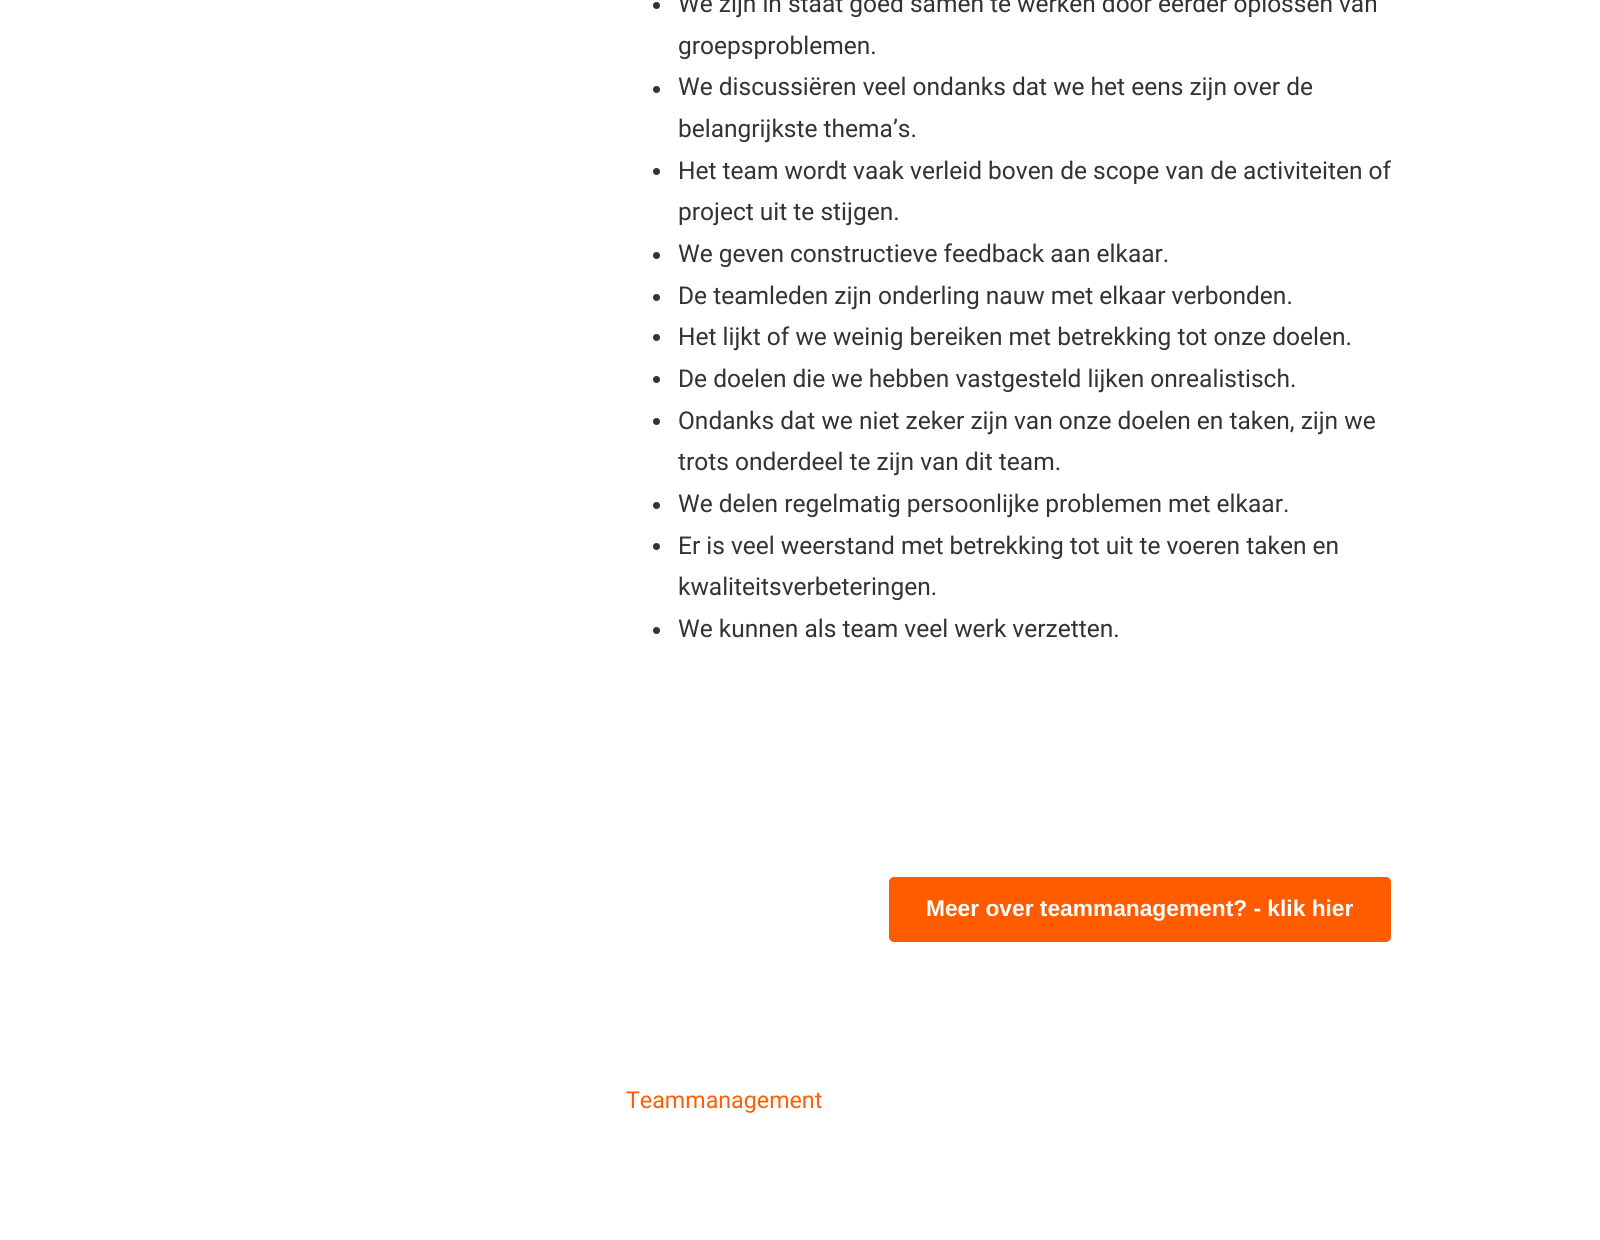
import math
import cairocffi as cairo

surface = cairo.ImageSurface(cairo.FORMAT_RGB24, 1600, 1240)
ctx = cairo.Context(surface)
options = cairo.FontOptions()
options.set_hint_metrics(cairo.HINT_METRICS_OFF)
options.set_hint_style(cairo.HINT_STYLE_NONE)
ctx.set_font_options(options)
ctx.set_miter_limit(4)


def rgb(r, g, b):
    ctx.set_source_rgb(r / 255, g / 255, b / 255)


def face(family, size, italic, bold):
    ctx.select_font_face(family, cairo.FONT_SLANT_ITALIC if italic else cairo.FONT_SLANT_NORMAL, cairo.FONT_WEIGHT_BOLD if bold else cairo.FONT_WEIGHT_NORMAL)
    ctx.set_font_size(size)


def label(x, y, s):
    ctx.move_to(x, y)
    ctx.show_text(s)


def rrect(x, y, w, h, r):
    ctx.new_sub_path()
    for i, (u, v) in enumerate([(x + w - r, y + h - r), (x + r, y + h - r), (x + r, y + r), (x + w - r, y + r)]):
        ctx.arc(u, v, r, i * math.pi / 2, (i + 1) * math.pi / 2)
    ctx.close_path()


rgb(255, 255, 255)
ctx.paint()
rgb(51, 51, 51)
ctx.arc(656.5, 5.5, 3.5, 0, 2 * math.pi)
ctx.fill()
face('Roboto', 24.5, 0, 0)
label(678, 12, 'We zijn in staat goed samen te werken door eerder oplossen van')
label(678, 54, 'groepsproblemen.')
ctx.new_path()
ctx.arc(656.5, 89.5, 3.5, 0, 2 * math.pi)
ctx.fill()
label(678, 95, 'We discussiëren veel ondanks dat we het eens zijn over de')
label(678, 137, 'belangrijkste thema’s.')
ctx.new_path()
ctx.arc(656.5, 171.5, 3.5, 0, 2 * math.pi)
ctx.fill()
label(678, 179, 'Het team wordt vaak verleid boven de scope van de activiteiten of')
label(678, 220, 'project uit te stijgen.')
ctx.new_path()
ctx.arc(656.5, 255.5, 3.5, 0, 2 * math.pi)
ctx.fill()
label(678, 262, 'We geven constructieve feedback aan elkaar.')
ctx.new_path()
ctx.arc(656.5, 297.5, 3.5, 0, 2 * math.pi)
ctx.fill()
label(678, 304, 'De teamleden zijn onderling nauw met elkaar verbonden.')
ctx.new_path()
ctx.arc(656.5, 337.5, 3.5, 0, 2 * math.pi)
ctx.fill()
label(678, 345, 'Het lijkt of we weinig bereiken met betrekking tot onze doelen.')
ctx.new_path()
ctx.arc(656.5, 379.5, 3.5, 0, 2 * math.pi)
ctx.fill()
label(678, 387, 'De doelen die we hebben vastgesteld lijken onrealistisch.')
ctx.new_path()
ctx.arc(656.5, 421.5, 3.5, 0, 2 * math.pi)
ctx.fill()
label(678, 429, 'Ondanks dat we niet zeker zijn van onze doelen en taken, zijn we')
label(678, 470, 'trots onderdeel te zijn van dit team.')
ctx.new_path()
ctx.arc(656.5, 505.5, 3.5, 0, 2 * math.pi)
ctx.fill()
label(678, 512, 'We delen regelmatig persoonlijke problemen met elkaar.')
ctx.new_path()
ctx.arc(656.5, 546.5, 3.5, 0, 2 * math.pi)
ctx.fill()
label(678, 554, 'Er is veel weerstand met betrekking tot uit te voeren taken en')
label(678, 595, 'kwaliteitsverbeteringen.')
ctx.new_path()
ctx.arc(656.5, 630.5, 3.5, 0, 2 * math.pi)
ctx.fill()
label(678, 637, 'We kunnen als team veel werk verzetten.')
rgb(255, 92, 0)
rrect(890, 878, 500, 63, 4)
ctx.fill_preserve()
ctx.stroke()
face('Liberation Sans', 22.75, 0, 1)
rgb(255, 255, 255)
label(926, 916, 'Meer over teammanagement? - klik hier')
face('Roboto', 23.25, 0, 0)
rgb(254, 94, 8)
label(626, 1108, 'Teammanagement')
surface.write_to_png('render.png')
